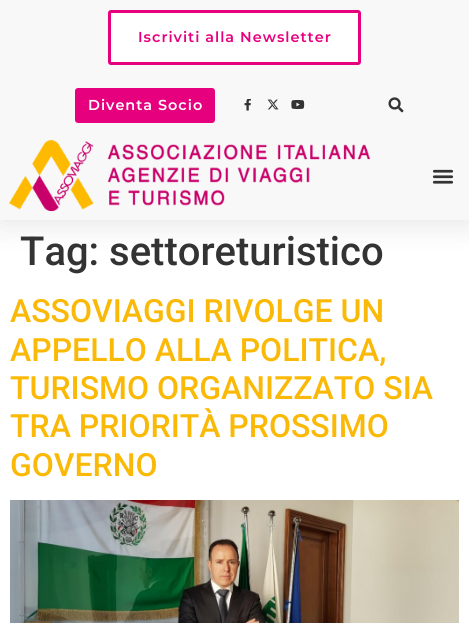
import math
import cairocffi as cairo

surface = cairo.ImageSurface(cairo.FORMAT_RGB24, 469, 623)
ctx = cairo.Context(surface)
options = cairo.FontOptions()
options.set_hint_metrics(cairo.HINT_METRICS_OFF)
options.set_hint_style(cairo.HINT_STYLE_NONE)
ctx.set_font_options(options)
ctx.set_miter_limit(4)


def rgb(r, g, b):
    ctx.set_source_rgb(r / 255, g / 255, b / 255)


def face(family, size, italic, bold):
    ctx.select_font_face(family, cairo.FONT_SLANT_ITALIC if italic else cairo.FONT_SLANT_NORMAL, cairo.FONT_WEIGHT_BOLD if bold else cairo.FONT_WEIGHT_NORMAL)
    ctx.set_font_size(size)


def label(x, y, s):
    ctx.move_to(x, y)
    ctx.show_text(s)


def tracked(x, y, s, letter, word):
    ctx.move_to(x, y)
    for ch in s:
        ctx.show_text(ch)
        ctx.rel_move_to(letter + word * (ch == ' '), 0)


def rect(x, y, w, h):
    ctx.rectangle(x, y, w, h)
    ctx.fill()


def rrect(x, y, w, h, r):
    ctx.new_sub_path()
    for i, (u, v) in enumerate([(x + w - r, y + h - r), (x + r, y + h - r), (x + r, y + r), (x + w - r, y + r)]):
        ctx.arc(u, v, r, i * math.pi / 2, (i + 1) * math.pi / 2)
    ctx.close_path()


def soft_shadow(x, y, w, h, r, blur, alpha):
    ctx.push_group_with_content(cairo.CONTENT_ALPHA)
    ctx.set_operator(cairo.OPERATOR_SOURCE)
    for i in range(15, -16, -2):
        e = blur * i / 6
        if min(w, h) + 2 * e > 0:
            ctx.set_source_rgba(0, 0, 0, alpha * math.erfc((i - 1) / 8.5) / 2)
            rrect(x - e, y - e, w + 2 * e, h + 2 * e, max(0, min(r + e + blur * .6, min(w, h) / 2 + e)))
            ctx.fill()
    ctx.mask(ctx.pop_group())


def image(path, x, y, w, h):
    ctx.save()
    ctx.set_source_surface(cairo.ImageSurface.create_from_png(path), x, y)
    ctx.rectangle(x, y, w, h)
    ctx.fill()
    ctx.restore()


rgb(255, 255, 255)
ctx.paint()
rgb(0, 0, 0)
soft_shadow(0, 5, 469, 220, 0, 15, 0.1)
rgb(248, 248, 248)
rect(0, 0, 469, 220)
rgb(255, 255, 255)
rrect(109.5, 11.5, 250, 52, 1.5)
ctx.fill_preserve()
rgb(230, 0, 126)
ctx.set_line_width(3)
ctx.stroke()
face('Montserrat SemiBold', 14.4, 0, 0)
tracked(138, 42, 'Iscriviti alla Newsletter', 1, 0)
rrect(75, 88, 140, 35, 3)
ctx.fill()
rgb(255, 255, 255)
tracked(88, 110, 'Diventa Socio', 1, 0)
image('image0.png', 244, 99, 7, 12)
image('image1.png', 267, 99, 12, 11)
image('image2.png', 291, 100, 14, 9)
image('image3.png', 388, 97, 16, 16)
image('image4.png', 9, 140, 361, 71)
image('image5.png', 432, 169, 22, 15)
face('Roboto Medium', 40, 0, 0)
rgb(51, 51, 51)
label(20, 265, 'Tag: settoreturistico')
face('Roboto Medium', 32, 0, 0)
rgb(251, 185, 7)
label(10, 322, 'ASSOVIAGGI RIVOLGE UN')
label(10, 361, 'APPELLO ALLA POLITICA,')
label(10, 399, 'TURISMO ORGANIZZATO SIA')
label(10, 437, 'TRA PRIORITÀ PROSSIMO')
label(10, 476, 'GOVERNO')
image('image6.png', 10, 500, 449, 123)
surface.write_to_png('render.png')
